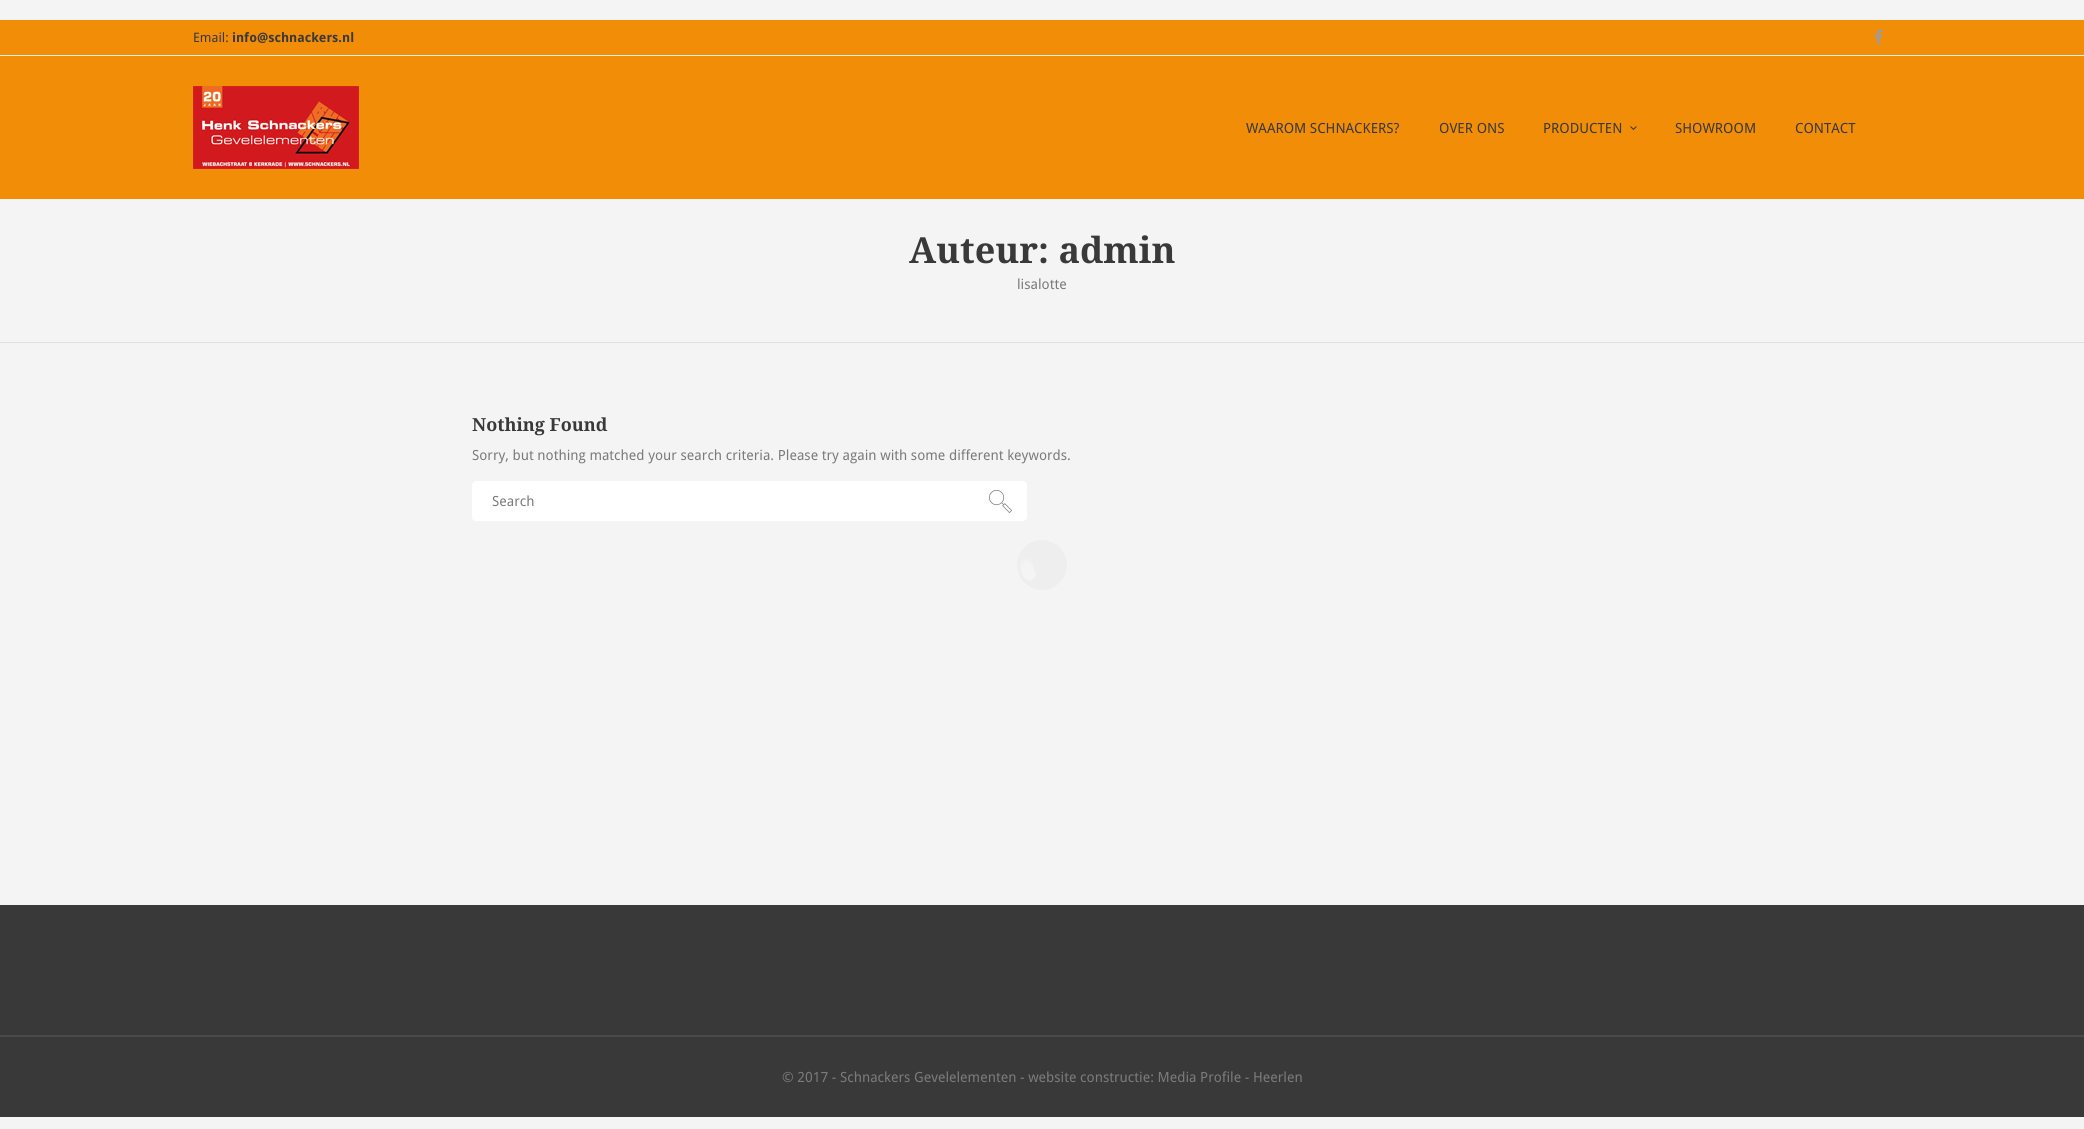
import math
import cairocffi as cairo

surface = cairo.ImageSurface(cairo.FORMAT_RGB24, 2084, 1129)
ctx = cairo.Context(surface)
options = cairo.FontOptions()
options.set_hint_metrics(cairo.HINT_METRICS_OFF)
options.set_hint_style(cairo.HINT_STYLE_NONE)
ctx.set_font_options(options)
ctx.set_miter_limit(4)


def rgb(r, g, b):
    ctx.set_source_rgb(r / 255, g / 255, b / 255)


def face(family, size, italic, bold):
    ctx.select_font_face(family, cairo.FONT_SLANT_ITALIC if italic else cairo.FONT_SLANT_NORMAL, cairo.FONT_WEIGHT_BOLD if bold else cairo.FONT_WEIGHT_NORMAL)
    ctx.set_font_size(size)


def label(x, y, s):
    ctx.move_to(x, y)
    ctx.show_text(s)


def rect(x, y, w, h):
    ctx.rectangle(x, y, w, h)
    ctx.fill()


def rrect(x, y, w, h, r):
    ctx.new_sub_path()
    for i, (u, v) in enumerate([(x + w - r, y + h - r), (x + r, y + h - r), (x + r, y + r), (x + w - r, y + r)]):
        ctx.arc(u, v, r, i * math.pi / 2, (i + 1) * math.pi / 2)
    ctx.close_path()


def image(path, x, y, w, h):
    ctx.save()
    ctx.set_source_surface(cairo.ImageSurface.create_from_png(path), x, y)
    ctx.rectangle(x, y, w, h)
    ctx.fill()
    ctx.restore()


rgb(244, 244, 244)
ctx.paint()
rgb(242, 141, 8)
rect(0, 20, 2084, 179)
rgb(239, 239, 239)
rect(0, 55, 2084, 1)
face('Droid Sans', 13, 0, 0)
rgb(57, 57, 57)
label(193, 42, 'Email:')
face('Droid Sans', 13, 0, 1)
label(232, 42, 'info@schnackers.nl')
image('image0.png', 1874, 29, 9, 16)
image('image1.png', 193, 86, 166, 83)
face('Droid Sans', 14, 0, 0)
label(1246, 133, 'WAAROM SCHNACKERS?')
label(1439, 133, 'OVER ONS')
label(1543, 133, 'PRODUCTEN')
image('image2.png', 1630, 126, 7, 4)
label(1675, 133, 'SHOWROOM')
label(1795, 133, 'CONTACT')
rgb(225, 225, 225)
rect(0, 342, 2084, 1)
face('Droid Serif', 36, 0, 1)
rgb(57, 57, 57)
label(909, 263, 'Auteur: admin')
face('Droid Sans', 14, 0, 0)
rgb(123, 123, 123)
label(1017, 289, 'lisalotte')
face('Droid Serif', 18, 0, 1)
rgb(57, 57, 57)
label(472, 431, 'Nothing Found')
face('Droid Sans', 14, 0, 0)
rgb(123, 123, 123)
label(472, 460, 'Sorry, but nothing matched your search criteria. Please try again with some different keywords.')
rgb(255, 255, 255)
rrect(472, 481, 555, 40, 4)
ctx.fill()
rgb(123, 123, 123)
label(492, 506, 'Search')
image('image3.png', 989, 490, 23, 23)
rgb(57, 57, 57)
rect(0, 905, 2084, 212)
rgb(74, 74, 74)
rect(0, 1035, 2084, 2)
rgb(123, 123, 123)
label(782, 1082, '© 2017 - Schnackers Gevelelementen - website constructie: Media Profile - Heerlen')
image('image4.png', 1017, 540, 50, 50)
surface.write_to_png('render.png')
